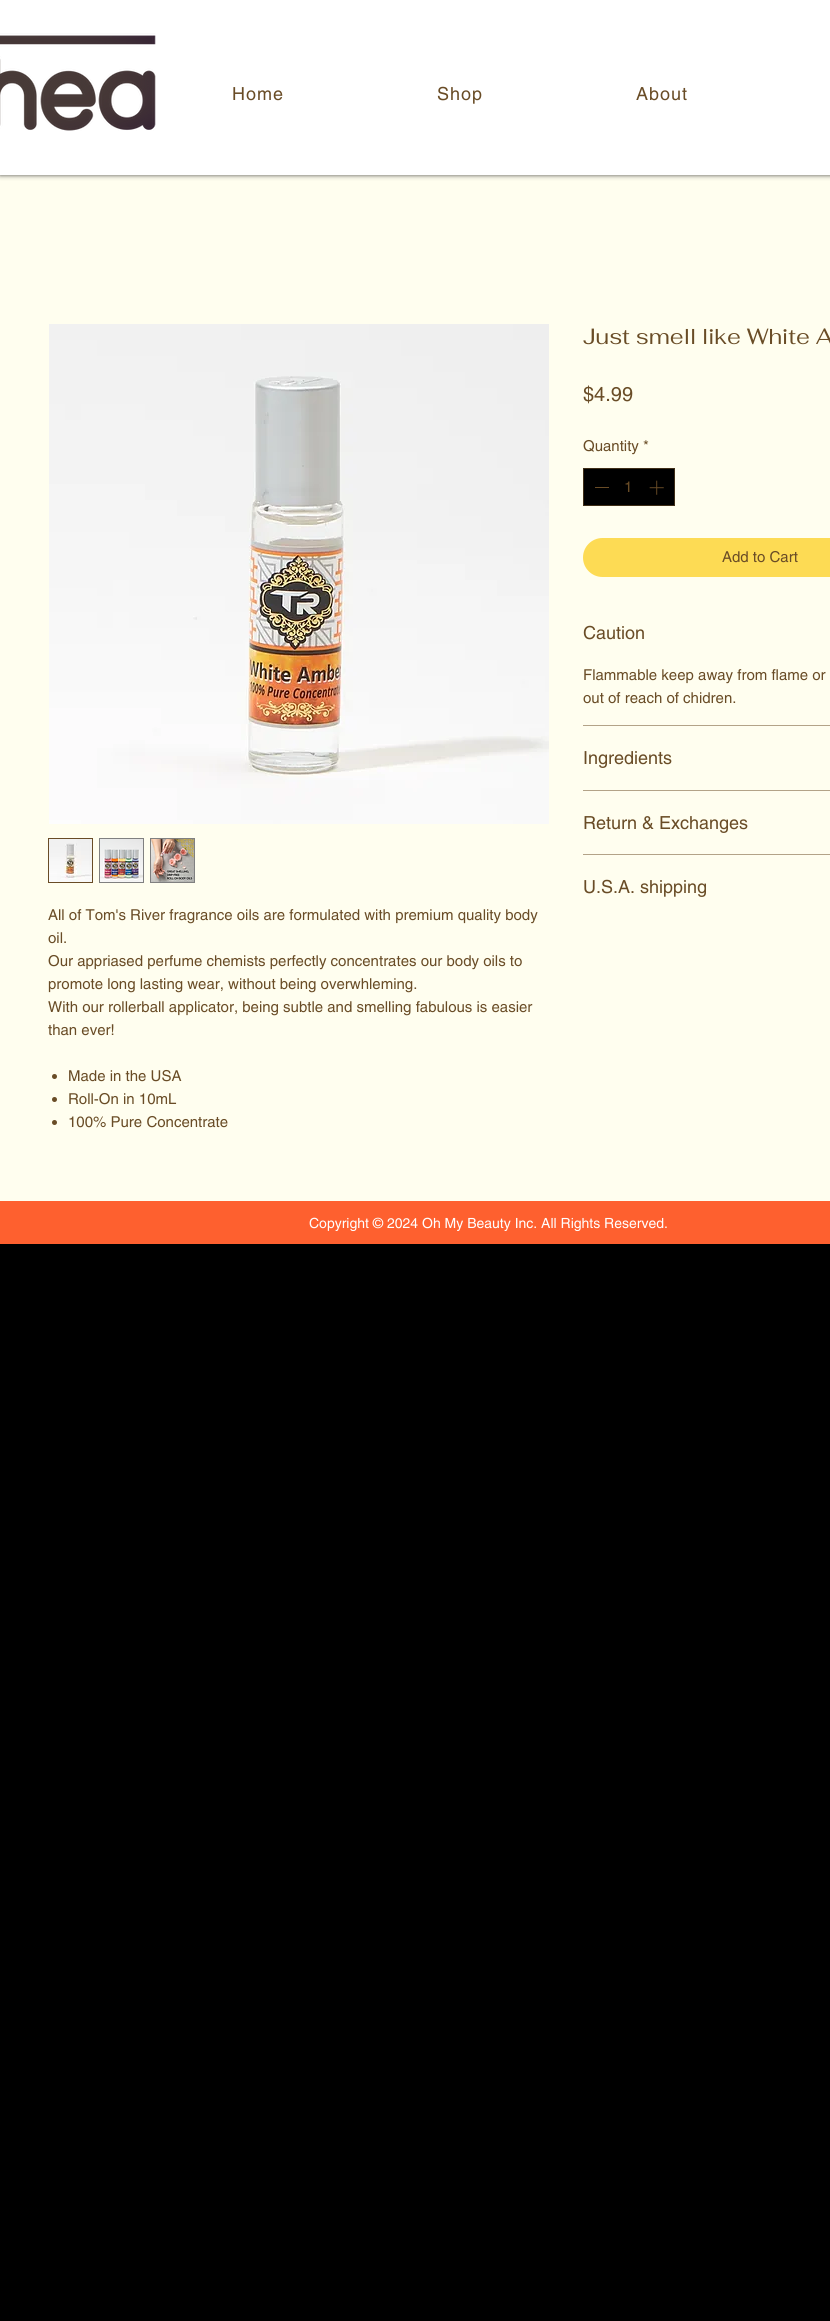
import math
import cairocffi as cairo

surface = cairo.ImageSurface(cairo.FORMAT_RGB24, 830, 2321)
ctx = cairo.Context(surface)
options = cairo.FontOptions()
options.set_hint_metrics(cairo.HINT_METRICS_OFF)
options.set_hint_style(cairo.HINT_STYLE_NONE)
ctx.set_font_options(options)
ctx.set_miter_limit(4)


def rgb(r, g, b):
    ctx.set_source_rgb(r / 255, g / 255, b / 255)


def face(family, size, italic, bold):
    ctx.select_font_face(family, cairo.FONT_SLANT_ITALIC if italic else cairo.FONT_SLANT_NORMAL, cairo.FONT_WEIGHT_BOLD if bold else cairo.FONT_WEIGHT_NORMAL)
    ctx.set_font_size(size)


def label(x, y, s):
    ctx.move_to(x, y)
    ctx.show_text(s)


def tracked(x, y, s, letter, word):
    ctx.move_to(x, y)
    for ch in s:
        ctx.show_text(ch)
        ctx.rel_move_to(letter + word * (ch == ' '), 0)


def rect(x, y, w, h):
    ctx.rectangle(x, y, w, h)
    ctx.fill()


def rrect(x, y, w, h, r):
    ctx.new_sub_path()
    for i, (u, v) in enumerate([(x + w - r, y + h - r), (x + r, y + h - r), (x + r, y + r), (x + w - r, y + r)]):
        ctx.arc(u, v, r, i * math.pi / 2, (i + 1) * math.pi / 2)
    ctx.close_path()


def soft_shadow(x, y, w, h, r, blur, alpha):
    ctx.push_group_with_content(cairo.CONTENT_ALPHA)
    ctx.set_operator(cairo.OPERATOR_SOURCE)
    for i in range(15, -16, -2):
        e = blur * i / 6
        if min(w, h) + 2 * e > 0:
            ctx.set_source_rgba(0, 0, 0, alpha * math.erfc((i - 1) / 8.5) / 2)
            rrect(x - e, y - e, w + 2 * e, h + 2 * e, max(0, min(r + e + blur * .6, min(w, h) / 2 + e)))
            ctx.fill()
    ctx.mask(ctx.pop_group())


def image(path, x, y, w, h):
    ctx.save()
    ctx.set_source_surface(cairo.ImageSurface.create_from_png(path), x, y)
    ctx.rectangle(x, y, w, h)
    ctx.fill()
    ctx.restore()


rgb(0, 0, 0)
ctx.paint()
rgb(255, 254, 239)
rect(0, 175, 830, 1026)
rgb(0, 0, 0)
soft_shadow(0, 0, 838, 175, 0, 2.5, 0.7)
rgb(255, 255, 255)
rect(0, 0, 830, 175)
image('image0.png', 0, 33, 156, 98)
face('helvetica', 18, 0, 0)
rgb(105, 76, 38)
tracked(232, 100, 'Home', 1, 0)
tracked(437, 100, 'Shop', 1, 0)
tracked(636, 100, 'About', 1, 0)
face('Fahkwang', 22, 0, 0)
label(583, 344, 'Just smell like White A')
face('helvetica', 20, 0, 0)
label(583, 401, '$4.99')
face('helvetica', 15, 0, 0)
label(583, 451, 'Quantity *')
rgb(0, 0, 0)
ctx.rectangle(583.5, 468.5, 91, 37)
ctx.fill_preserve()
rgb(63, 46, 23)
ctx.set_line_width(1)
ctx.stroke()
rgb(105, 76, 38)
rect(595, 487, 14, 1)
label(624, 492, '1')
image('image1.png', 649, 480, 15, 15)
rgb(253, 219, 84)
rrect(583, 538, 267, 39, 19.5)
ctx.fill()
rgb(105, 76, 38)
label(722, 562, 'Add to Cart')
rgb(179, 163, 136)
rect(583, 725, 247, 1)
face('helvetica', 18, 0, 0)
rgb(105, 76, 38)
label(583, 639, 'Caution')
face('helvetica', 15, 0, 0)
label(583, 680, 'Flammable keep away from flame or')
label(583, 703, 'out of reach of chidren.')
rgb(179, 163, 136)
rect(583, 790, 247, 1)
face('helvetica', 18, 0, 0)
rgb(105, 76, 38)
label(583, 764, 'Ingredients')
rgb(179, 163, 136)
rect(583, 854, 247, 1)
rgb(105, 76, 38)
label(583, 829, 'Return & Exchanges')
label(583, 893, 'U.S.A. shipping')
image('image2.png', 49, 324, 500, 500)
ctx.rectangle(48.5, 838.5, 44, 44)
ctx.stroke()
image('image3.png', 49, 839, 43, 43)
rgb(128, 128, 128)
rect(99, 838, 45, 45)
image('image4.png', 100, 839, 43, 43)
rect(150, 838, 45, 45)
image('image5.png', 151, 839, 43, 43)
face('helvetica', 15, 0, 0)
rgb(105, 76, 38)
label(48, 920, 'All of Tom\'s River fragrance oils are formulated with premium quality body')
label(48, 943, 'oil.')
label(48, 966, 'Our appriased perfume chemists perfectly concentrates our body oils to')
label(48, 989, 'promote long lasting wear, without being overwhleming.')
label(48, 1012, 'With our rollerball applicator, being subtle and smelling fabulous is easier')
label(48, 1035, 'than ever!')
ctx.new_path()
ctx.arc(54.5, 1076.5, 2.5, 0, 2 * math.pi)
ctx.fill()
label(68, 1081, 'Made in the USA')
ctx.new_path()
ctx.arc(54.5, 1099.5, 2.5, 0, 2 * math.pi)
ctx.fill()
label(68, 1104, 'Roll-On in 10mL')
ctx.new_path()
ctx.arc(54.5, 1122.5, 2.5, 0, 2 * math.pi)
ctx.fill()
label(68, 1127, '100% Pure Concentrate')
rgb(254, 96, 47)
rect(0, 1201, 830, 43)
face('helvetica', 14, 0, 0)
rgb(255, 255, 255)
label(309, 1228, 'Copyright © 2024 Oh My Beauty Inc. All Rights Reserved.')
surface.write_to_png('render.png')
